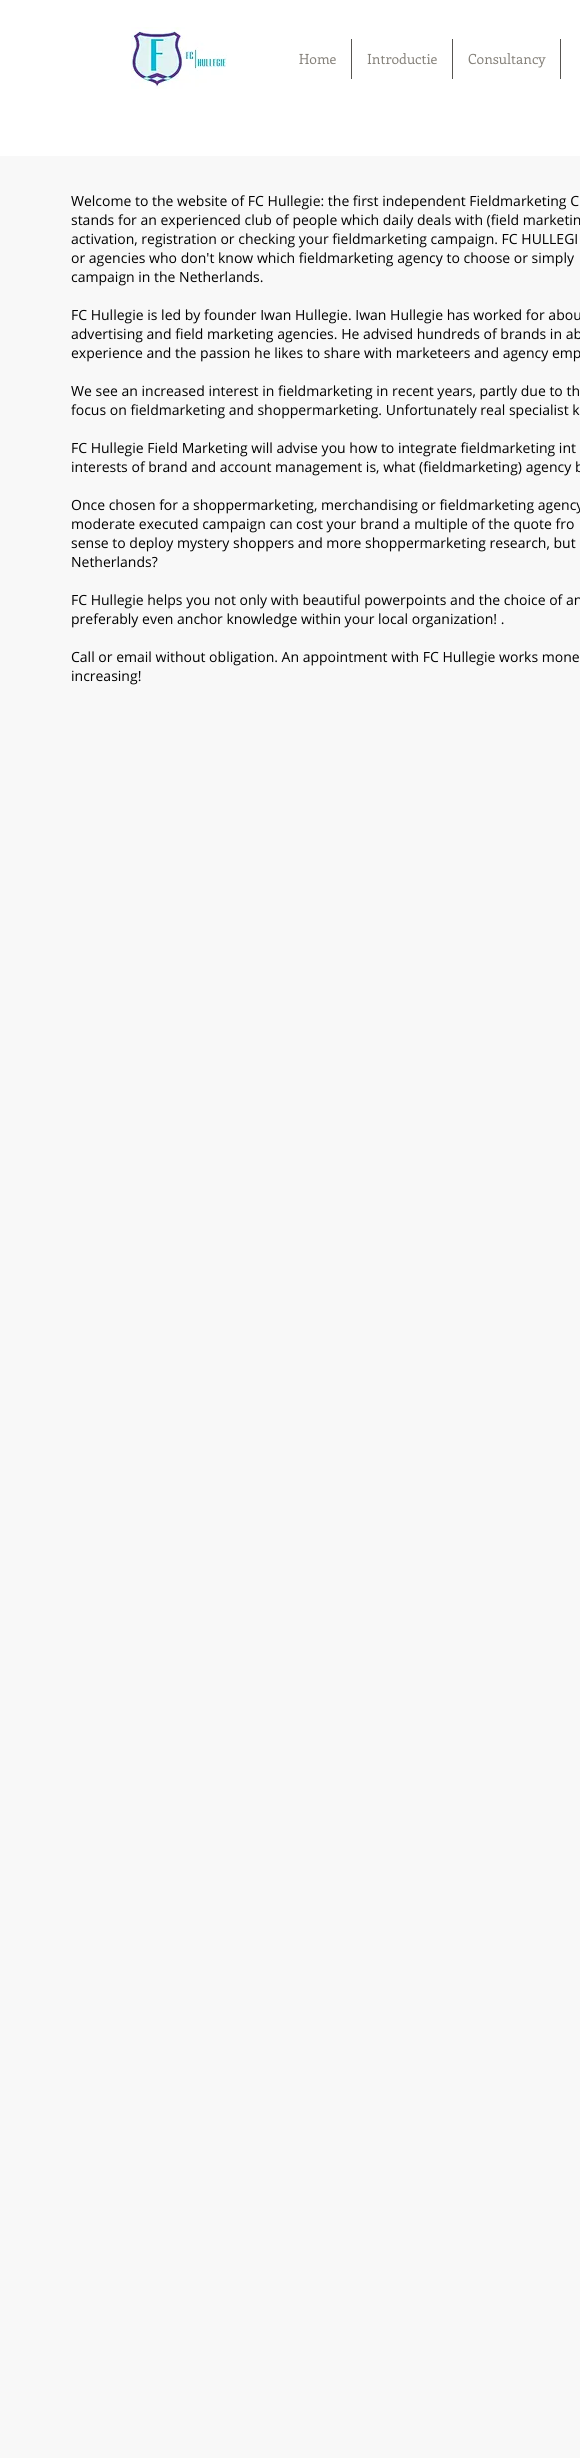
import math
import cairocffi as cairo

surface = cairo.ImageSurface(cairo.FORMAT_RGB24, 580, 2458)
ctx = cairo.Context(surface)
options = cairo.FontOptions()
options.set_hint_metrics(cairo.HINT_METRICS_OFF)
options.set_hint_style(cairo.HINT_STYLE_NONE)
ctx.set_font_options(options)
ctx.set_miter_limit(4)


def rgb(r, g, b):
    ctx.set_source_rgb(r / 255, g / 255, b / 255)


def face(family, size, italic, bold):
    ctx.select_font_face(family, cairo.FONT_SLANT_ITALIC if italic else cairo.FONT_SLANT_NORMAL, cairo.FONT_WEIGHT_BOLD if bold else cairo.FONT_WEIGHT_NORMAL)
    ctx.set_font_size(size)


def label(x, y, s):
    ctx.move_to(x, y)
    ctx.show_text(s)


def rect(x, y, w, h):
    ctx.rectangle(x, y, w, h)
    ctx.fill()


def image(path, x, y, w, h):
    ctx.save()
    ctx.set_source_surface(cairo.ImageSurface.create_from_png(path), x, y)
    ctx.rectangle(x, y, w, h)
    ctx.fill()
    ctx.restore()


rgb(248, 248, 248)
ctx.paint()
rgb(255, 255, 255)
rect(0, 0, 580, 156)
image('image0.png', 131, 27, 96, 62)
face('Enriqueta', 14, 0, 0)
rgb(132, 128, 121)
label(299, 64, 'Home')
rgb(88, 85, 81)
rect(351, 39, 1, 40)
rgb(132, 128, 121)
label(367, 64, 'Introductie')
rgb(88, 85, 81)
rect(452, 39, 1, 40)
rgb(132, 128, 121)
label(468, 64, 'Consultancy')
rgb(88, 85, 81)
rect(560, 39, 1, 40)
face('Open Sans', 14, 0, 0)
rgb(0, 0, 0)
label(71, 206, 'Welcome to the website of FC Hullegie: the first independent Fieldmarketing C')
label(71, 225, 'stands for an experienced club of people which daily deals with (field marketin')
label(71, 244, 'activation, registration or checking your fieldmarketing campaign. FC HULLEGI')
label(71, 263, 'or agencies who don\'t know which fieldmarketing agency to choose or simply')
label(71, 282, 'campaign in the Netherlands.')
label(71, 320, 'FC Hullegie is led by founder Iwan Hullegie. Iwan Hullegie has worked for abou')
label(71, 339, 'advertising and field marketing agencies. He advised hundreds of brands in ab')
label(71, 358, 'experience and the passion he likes to share with marketeers and agency emp')
label(71, 396, 'We see an increased interest in fieldmarketing in recent years, partly due to th')
label(71, 415, 'focus on fieldmarketing and shoppermarketing. Unfortunately real specialist k')
label(71, 453, 'FC Hullegie Field Marketing will advise you how to integrate fieldmarketing int')
label(71, 472, 'interests of brand and account management is, what (fieldmarketing) agency b')
label(71, 510, 'Once chosen for a shoppermarketing, merchandising or fieldmarketing agency')
label(71, 529, 'moderate executed campaign can cost your brand a multiple of the quote fro')
label(71, 548, 'sense to deploy mystery shoppers and more shoppermarketing research, but')
label(71, 567, 'Netherlands?')
label(71, 605, 'FC Hullegie helps you not only with beautiful powerpoints and the choice of an')
label(71, 624, 'preferably even anchor knowledge within your local organization! .')
label(71, 662, 'Call or email without obligation. An appointment with FC Hullegie works mone')
label(71, 681, 'increasing!')
surface.write_to_png('render.png')
